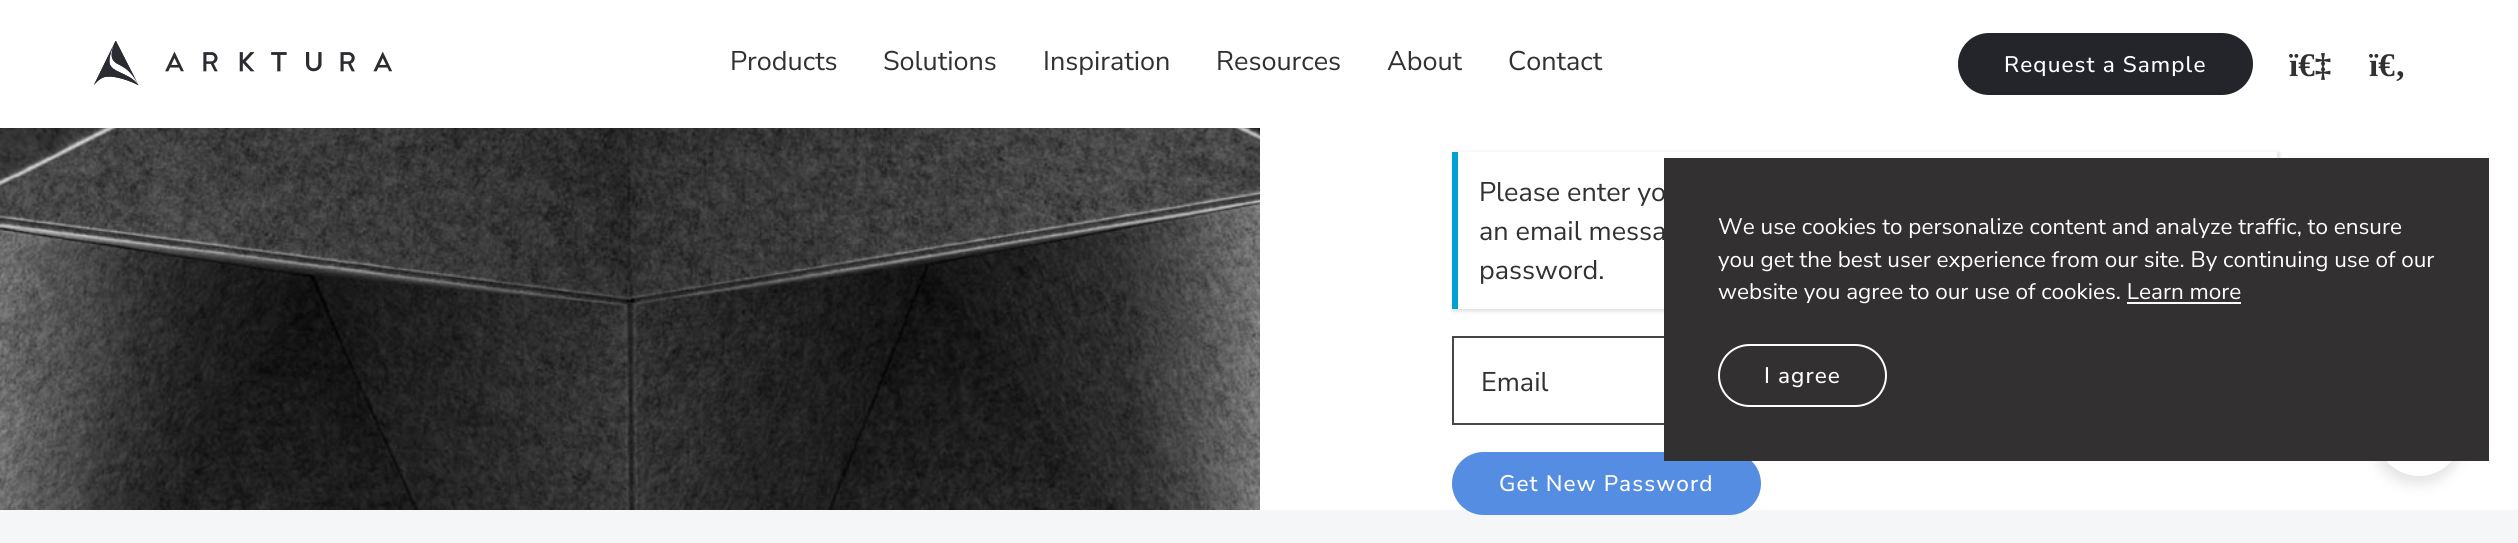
import math
import cairocffi as cairo

surface = cairo.ImageSurface(cairo.FORMAT_RGB24, 2518, 543)
ctx = cairo.Context(surface)
options = cairo.FontOptions()
options.set_hint_metrics(cairo.HINT_METRICS_OFF)
options.set_hint_style(cairo.HINT_STYLE_NONE)
ctx.set_font_options(options)
ctx.set_miter_limit(4)


def rgb(r, g, b):
    ctx.set_source_rgb(r / 255, g / 255, b / 255)


def face(family, size, italic, bold):
    ctx.select_font_face(family, cairo.FONT_SLANT_ITALIC if italic else cairo.FONT_SLANT_NORMAL, cairo.FONT_WEIGHT_BOLD if bold else cairo.FONT_WEIGHT_NORMAL)
    ctx.set_font_size(size)


def label(x, y, s):
    ctx.move_to(x, y)
    ctx.show_text(s)


def tracked(x, y, s, letter, word):
    ctx.move_to(x, y)
    for ch in s:
        ctx.show_text(ch)
        ctx.rel_move_to(letter + word * (ch == ' '), 0)


def rect(x, y, w, h):
    ctx.rectangle(x, y, w, h)
    ctx.fill()


def rrect(x, y, w, h, r):
    ctx.new_sub_path()
    for i, (u, v) in enumerate([(x + w - r, y + h - r), (x + r, y + h - r), (x + r, y + r), (x + w - r, y + r)]):
        ctx.arc(u, v, r, i * math.pi / 2, (i + 1) * math.pi / 2)
    ctx.close_path()


def soft_shadow(x, y, w, h, r, blur, alpha):
    ctx.push_group_with_content(cairo.CONTENT_ALPHA)
    ctx.set_operator(cairo.OPERATOR_SOURCE)
    for i in range(15, -16, -2):
        e = blur * i / 6
        if min(w, h) + 2 * e > 0:
            ctx.set_source_rgba(0, 0, 0, alpha * math.erfc((i - 1) / 8.5) / 2)
            rrect(x - e, y - e, w + 2 * e, h + 2 * e, max(0, min(r + e + blur * .6, min(w, h) / 2 + e)))
            ctx.fill()
    ctx.mask(ctx.pop_group())


def image(path, x, y, w, h):
    ctx.save()
    ctx.set_source_surface(cairo.ImageSurface.create_from_png(path), x, y)
    ctx.rectangle(x, y, w, h)
    ctx.fill()
    ctx.restore()


rgb(245, 246, 248)
ctx.paint()
rgb(255, 255, 255)
rect(1260, 128, 1258, 382)
rect(0, 0, 2518, 128)
image('image0.png', 93, 41, 300, 45)
face('Nunito Sans', 27, 0, 0)
rgb(50, 48, 48)
label(730, 70, 'Products')
label(883, 70, 'Solutions')
label(1043, 70, 'Inspiration')
label(1216, 70, 'Resources')
label(1387, 70, 'About')
label(1508, 70, 'Contact')
rgb(36, 37, 43)
rrect(1959, 34, 293, 60, 30)
ctx.fill_preserve()
ctx.stroke()
face('Nunito Sans Medium', 22.5, 0, 0)
rgb(255, 255, 255)
tracked(2004, 72, 'Request a Sample', 1.1, 0)
face('Liberation Serif', 33, 0, 1)
rgb(50, 48, 48)
label(2289, 76, 'ï€‡')
label(2369, 76, 'ï€‚')
image('image1.png', 0, 128, 1260, 382)
ctx.save()
ctx.set_fill_rule(cairo.FILL_RULE_EVEN_ODD)
ctx.new_path()
ctx.move_to(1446, 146)
ctx.line_to(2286, 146)
ctx.line_to(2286, 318)
ctx.line_to(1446, 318)
ctx.close_path()
ctx.move_to(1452, 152)
ctx.line_to(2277, 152)
ctx.line_to(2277, 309)
ctx.line_to(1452, 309)
ctx.close_path()
ctx.clip()
rgb(0, 0, 0)
soft_shadow(1452, 152, 828, 160, 0, 1.5, 0.1)
ctx.restore()
rgb(0, 160, 210)
rect(1452, 152, 6, 157)
face('Nunito Sans', 27, 0, 0)
rgb(50, 48, 48)
label(1479, 201, 'Please enter yo')
label(1479, 240, 'an email messa')
label(1479, 279, 'password.')
ctx.rectangle(1453, 337, 823, 87)
rgb(71, 69, 69)
ctx.stroke()
rgb(50, 48, 48)
label(1481, 391, 'Email')
rgb(85, 141, 226)
rrect(1453, 453, 307, 61, 30.5)
ctx.fill_preserve()
ctx.stroke()
face('Nunito Sans Medium', 22.5, 0, 0)
rgb(255, 255, 255)
tracked(1499, 491, 'Get New Password', 1.1, 0)
rgb(0, 0, 0)
soft_shadow(2373, 395, 89, 88, 44, 7.5, 0.12)
rgb(255, 255, 255)
ctx.arc(2419, 433, 43, 0, 2 * math.pi)
ctx.fill()
rgb(50, 48, 48)
rect(1664, 158, 825, 303)
face('Nunito Sans', 22.5, 0, 0)
rgb(255, 255, 255)
label(1718, 234, 'We use cookies to personalize content and analyze traffic, to ensure')
label(1718, 267, 'you get the best user experience from our site. By continuing use of our')
label(1718, 299, 'website you agree to our use of cookies. Learn more')
rect(2127, 302, 114, 2)
rrect(1719, 345, 167, 61, 30.5)
ctx.stroke()
face('Nunito Sans Medium', 22.5, 0, 0)
tracked(1764, 383, 'I agree', 1.1, 0)
surface.write_to_png('render.png')
